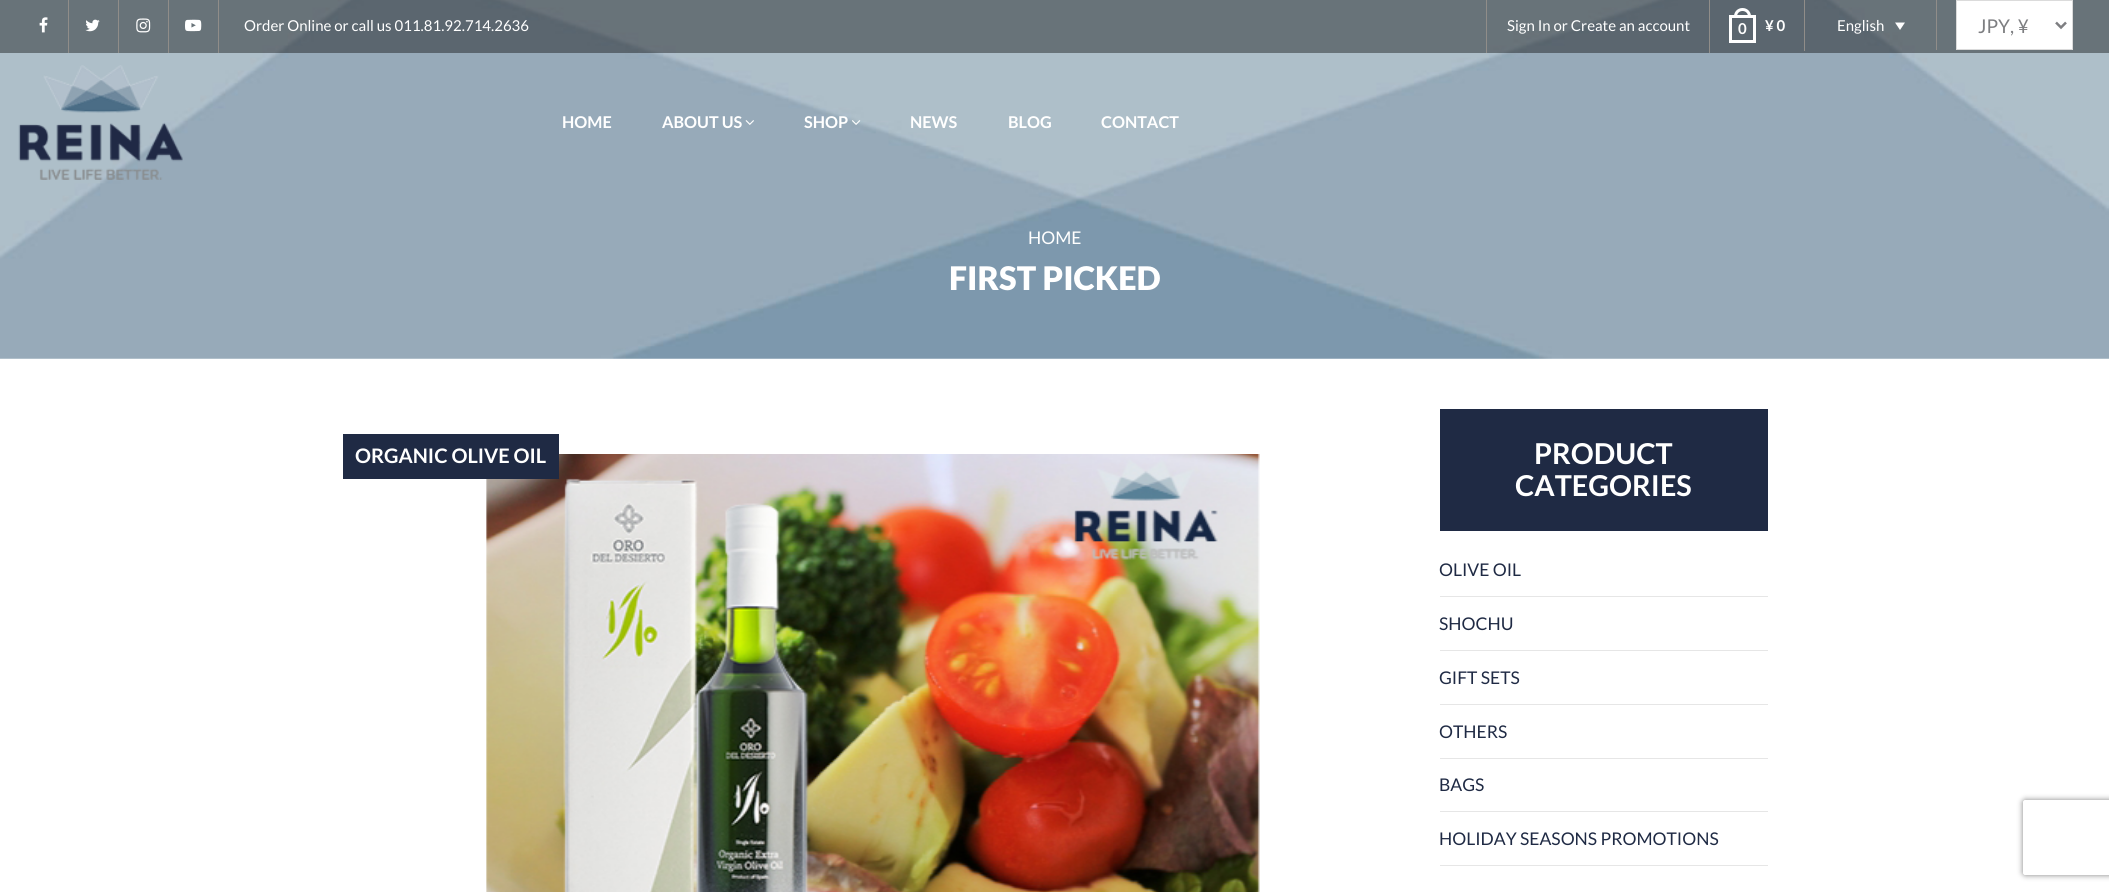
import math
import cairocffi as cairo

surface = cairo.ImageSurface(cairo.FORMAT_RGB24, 2109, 892)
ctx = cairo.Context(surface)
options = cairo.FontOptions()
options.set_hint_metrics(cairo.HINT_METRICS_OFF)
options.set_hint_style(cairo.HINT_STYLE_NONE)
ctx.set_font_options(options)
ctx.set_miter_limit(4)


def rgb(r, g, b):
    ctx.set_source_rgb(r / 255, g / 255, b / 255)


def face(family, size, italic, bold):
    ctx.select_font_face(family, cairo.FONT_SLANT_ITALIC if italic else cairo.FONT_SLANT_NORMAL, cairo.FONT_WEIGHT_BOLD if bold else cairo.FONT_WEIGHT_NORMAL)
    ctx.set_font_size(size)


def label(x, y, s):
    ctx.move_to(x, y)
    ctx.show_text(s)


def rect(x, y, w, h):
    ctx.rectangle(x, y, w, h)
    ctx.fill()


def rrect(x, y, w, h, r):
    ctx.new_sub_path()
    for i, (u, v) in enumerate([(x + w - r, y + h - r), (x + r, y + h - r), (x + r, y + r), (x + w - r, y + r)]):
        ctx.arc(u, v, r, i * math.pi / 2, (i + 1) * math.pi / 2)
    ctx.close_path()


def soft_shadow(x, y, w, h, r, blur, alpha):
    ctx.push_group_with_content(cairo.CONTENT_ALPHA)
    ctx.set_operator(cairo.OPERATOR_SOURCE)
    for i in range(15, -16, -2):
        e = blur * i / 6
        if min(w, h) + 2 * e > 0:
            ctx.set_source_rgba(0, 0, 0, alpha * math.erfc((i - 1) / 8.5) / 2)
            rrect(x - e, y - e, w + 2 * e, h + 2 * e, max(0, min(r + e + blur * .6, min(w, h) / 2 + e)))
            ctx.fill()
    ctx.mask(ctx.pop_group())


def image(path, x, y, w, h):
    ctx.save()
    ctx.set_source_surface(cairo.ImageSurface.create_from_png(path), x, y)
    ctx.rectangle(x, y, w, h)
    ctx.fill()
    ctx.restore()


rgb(255, 255, 255)
ctx.paint()
image('image7.png', 0, 0, 2109, 359)
ctx.set_source_rgba(0, 0, 0, 0.4)
rect(0, 0, 2109, 53)
rgb(144, 141, 137)
rect(68, 0, 1, 53)
image('image0.png', 39, 17, 9, 16)
rect(118, 0, 1, 53)
image('image1.png', 85, 19, 15, 13)
rect(168, 0, 1, 53)
image('image2.png', 136, 18, 15, 15)
rect(218, 0, 1, 53)
image('image3.png', 185, 19, 17, 13)
face('Lato', 15, 0, 0)
rgb(255, 255, 255)
label(244, 31, 'Order Online or call us 011.81.92.714.2636')
rgb(144, 141, 137)
rect(1486, 0, 1, 53)
rgb(255, 255, 255)
label(1507, 31, 'Sign In or Create an account')
rgb(144, 141, 137)
rect(1709, 0, 1, 53)
ctx.rectangle(1730.5, 16.5, 24, 25)
rgb(255, 255, 255)
ctx.set_line_width(3)
ctx.stroke()
ctx.new_path()
ctx.move_to(1742.5, 9.5)
ctx.curve_to(1746.5, 9.5, 1749.5, 12.5, 1749.5, 16.5)
ctx.line_to(1735.5, 16.5)
ctx.curve_to(1735.5, 12.5, 1738.5, 9.5, 1742.5, 9.5)
ctx.close_path()
ctx.stroke()
face('Lato', 15, 0, 1)
label(1738, 34, '0')
label(1765, 31, '¥ 0')
rgb(144, 141, 137)
rect(1804, 0, 1, 51)
face('Lato', 15, 0, 0)
rgb(255, 255, 255)
label(1837, 31, 'English')
ctx.new_path()
ctx.move_to(1895, 22.5)
ctx.line_to(1905, 22.5)
ctx.line_to(1900, 30)
ctx.close_path()
ctx.fill()
rgb(144, 141, 137)
rect(1936, 0, 1, 50)
rgb(255, 255, 255)
ctx.rectangle(1956.5, 0.5, 116, 49)
ctx.fill_preserve()
rgb(219, 219, 219)
ctx.set_line_width(1)
ctx.stroke()
ctx.new_path()
ctx.move_to(2056, 22.5)
ctx.line_to(2061, 27.5)
ctx.line_to(2066, 22.5)
rgb(125, 126, 129)
ctx.set_line_width(2.5)
ctx.stroke()
face('Lato', 19, 0, 0)
label(1978, 33, 'JPY, ¥')
image('image4.png', 18, 65, 165, 115)
face('Lato', 16.25, 0, 1)
rgb(255, 255, 255)
label(562, 128, 'HOME')
label(662, 128, 'ABOUT US')
image('image5.png', 745, 120, 9, 5)
label(804, 128, 'SHOP')
image('image6.png', 852, 120, 9, 5)
label(910, 128, 'NEWS')
label(1008, 128, 'BLOG')
label(1101, 128, 'CONTACT')
face('Lato', 17.5, 0, 0)
label(1028, 244, 'HOME')
face('Lato Black', 32.5, 0, 0)
label(949, 290, 'FIRST PICKED')
image('image8.png', 486, 454, 774, 438)
rgb(31, 42, 68)
rect(343, 434, 216, 45)
face('Lato', 20, 0, 1)
rgb(255, 255, 255)
label(355, 463, 'ORGANIC OLIVE OIL')
rgb(31, 42, 68)
rect(1440, 409, 328, 122)
face('Lato', 28.75, 0, 1)
rgb(255, 255, 255)
label(1534, 464, 'PRODUCT')
label(1515, 496, 'CATEGORIES')
rgb(230, 230, 230)
rect(1440, 596, 328, 1)
face('Lato', 17.5, 0, 0)
rgb(31, 42, 68)
label(1439, 576, 'OLIVE OIL')
rgb(230, 230, 230)
rect(1440, 650, 328, 1)
rgb(31, 42, 68)
label(1439, 630, 'SHOCHU')
rgb(230, 230, 230)
rect(1440, 704, 328, 1)
rgb(31, 42, 68)
label(1439, 684, 'GIFT SETS')
rgb(230, 230, 230)
rect(1440, 758, 328, 1)
rgb(31, 42, 68)
label(1439, 738, 'OTHERS')
rgb(230, 230, 230)
rect(1440, 811, 328, 1)
rgb(31, 42, 68)
label(1439, 791, 'BAGS')
rgb(230, 230, 230)
rect(1440, 865, 328, 1)
rgb(31, 42, 68)
label(1439, 845, 'HOLIDAY SEASONS PROMOTIONS')
ctx.save()
ctx.set_fill_rule(cairo.FILL_RULE_EVEN_ODD)
ctx.new_path()
ctx.move_to(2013, 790)
ctx.line_to(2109, 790)
ctx.line_to(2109, 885)
ctx.line_to(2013, 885)
ctx.close_path()
ctx.move_to(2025.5, 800)
ctx.line_to(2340.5, 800)
ctx.curve_to(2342, 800, 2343, 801, 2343, 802.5)
ctx.line_to(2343, 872.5)
ctx.curve_to(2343, 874, 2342, 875, 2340.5, 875)
ctx.line_to(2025.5, 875)
ctx.curve_to(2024, 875, 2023, 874, 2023, 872.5)
ctx.line_to(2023, 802.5)
ctx.curve_to(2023, 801, 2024, 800, 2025.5, 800)
ctx.close_path()
ctx.clip()
rgb(128, 128, 128)
soft_shadow(2023, 800, 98, 75, 2.5, 3, 1)
ctx.restore()
surface.write_to_png('render.png')
